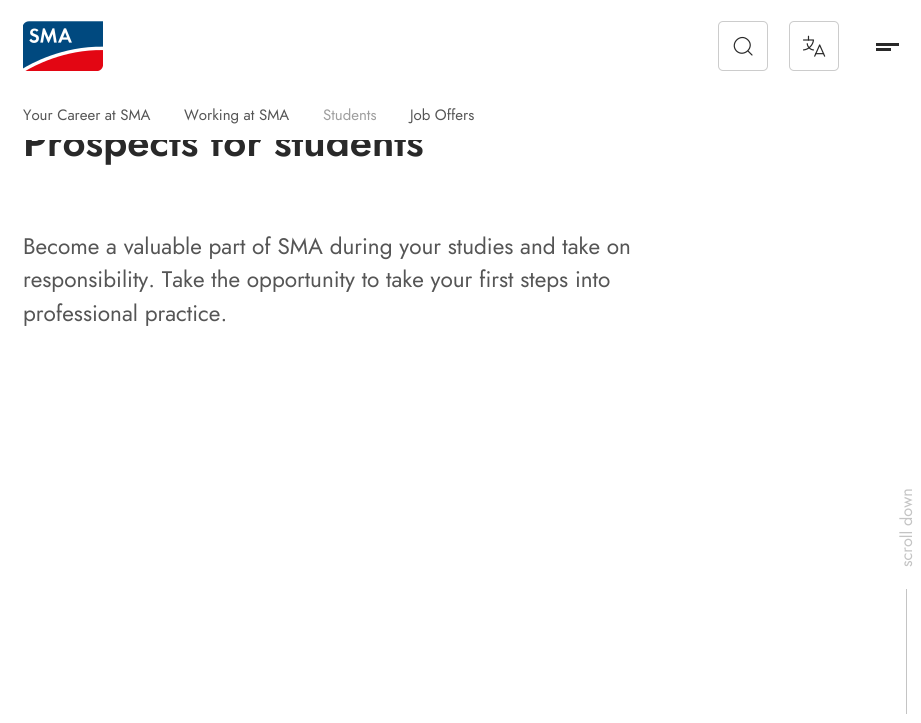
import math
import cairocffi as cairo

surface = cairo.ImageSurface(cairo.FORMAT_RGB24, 921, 723)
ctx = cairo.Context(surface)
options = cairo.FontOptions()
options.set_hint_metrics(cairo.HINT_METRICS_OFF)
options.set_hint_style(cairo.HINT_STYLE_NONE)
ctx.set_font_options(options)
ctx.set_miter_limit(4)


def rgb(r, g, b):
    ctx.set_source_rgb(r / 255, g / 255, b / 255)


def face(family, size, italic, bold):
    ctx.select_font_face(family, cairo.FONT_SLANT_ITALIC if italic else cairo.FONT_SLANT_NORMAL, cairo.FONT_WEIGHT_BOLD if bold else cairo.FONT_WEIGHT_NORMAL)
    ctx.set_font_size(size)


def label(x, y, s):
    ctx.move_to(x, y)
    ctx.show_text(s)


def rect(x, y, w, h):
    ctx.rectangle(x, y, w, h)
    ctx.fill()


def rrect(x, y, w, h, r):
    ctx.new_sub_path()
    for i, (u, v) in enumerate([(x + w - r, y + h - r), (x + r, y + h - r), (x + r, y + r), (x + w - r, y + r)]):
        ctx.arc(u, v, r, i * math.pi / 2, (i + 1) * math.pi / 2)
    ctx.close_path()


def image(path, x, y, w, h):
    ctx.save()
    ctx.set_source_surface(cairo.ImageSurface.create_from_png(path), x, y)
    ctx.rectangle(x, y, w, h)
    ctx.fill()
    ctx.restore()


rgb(255, 255, 255)
ctx.paint()
face('Jost SemiBold', 40, 0, 0)
rgb(41, 41, 41)
label(23, 156, 'Prospects for students')
rgb(255, 255, 255)
rect(25, 124, 397, 16)
image('image0.png', 23, 21, 80, 50)
rrect(718.5, 21.5, 49, 49, 4.5)
rgb(204, 204, 204)
ctx.set_line_width(1)
ctx.stroke()
ctx.new_path()
ctx.move_to(748, 40)
ctx.curve_to(755, 47, 744, 58, 736.5, 51)
ctx.curve_to(729.5, 43.5, 740.5, 32.5, 748, 40)
ctx.move_to(752, 55)
ctx.line_to(748, 51)
rgb(41, 41, 41)
ctx.set_line_width(1.2)
ctx.set_line_cap(cairo.LINE_CAP_ROUND)
ctx.set_line_join(cairo.LINE_JOIN_ROUND)
ctx.stroke()
rrect(789.5, 21.5, 49, 49, 4.5)
rgb(204, 204, 204)
ctx.set_line_width(1)
ctx.set_line_cap(cairo.LINE_CAP_BUTT)
ctx.set_line_join(cairo.LINE_JOIN_MITER)
ctx.stroke()
image('image1.png', 803, 35, 23, 22)
rgb(41, 41, 41)
rect(876, 43, 23, 3)
rect(876, 48, 15, 3)
face('Jost', 15, 0, 0)
rgb(85, 85, 85)
label(23, 120, 'Your Career at SMA')
label(184, 120, 'Working at SMA')
rgb(158, 158, 158)
label(323, 120, 'Students')
rgb(85, 85, 85)
label(410, 120, 'Job Offers')
face('Jost', 22.5, 0, 0)
label(23, 254, 'Become a valuable part of SMA during your studies and take on')
label(23, 287, 'responsibility. Take the opportunity to take your first steps into')
label(23, 321, 'professional practice.')
face('Jost', 16.25, 0, 0)
rgb(196, 196, 196)
ctx.save()
ctx.translate(912, 567)
ctx.rotate(-90 * math.pi / 180)
label(0, 0, 'scroll down')
ctx.restore()
rect(906, 589, 1, 125)
surface.write_to_png('render.png')
